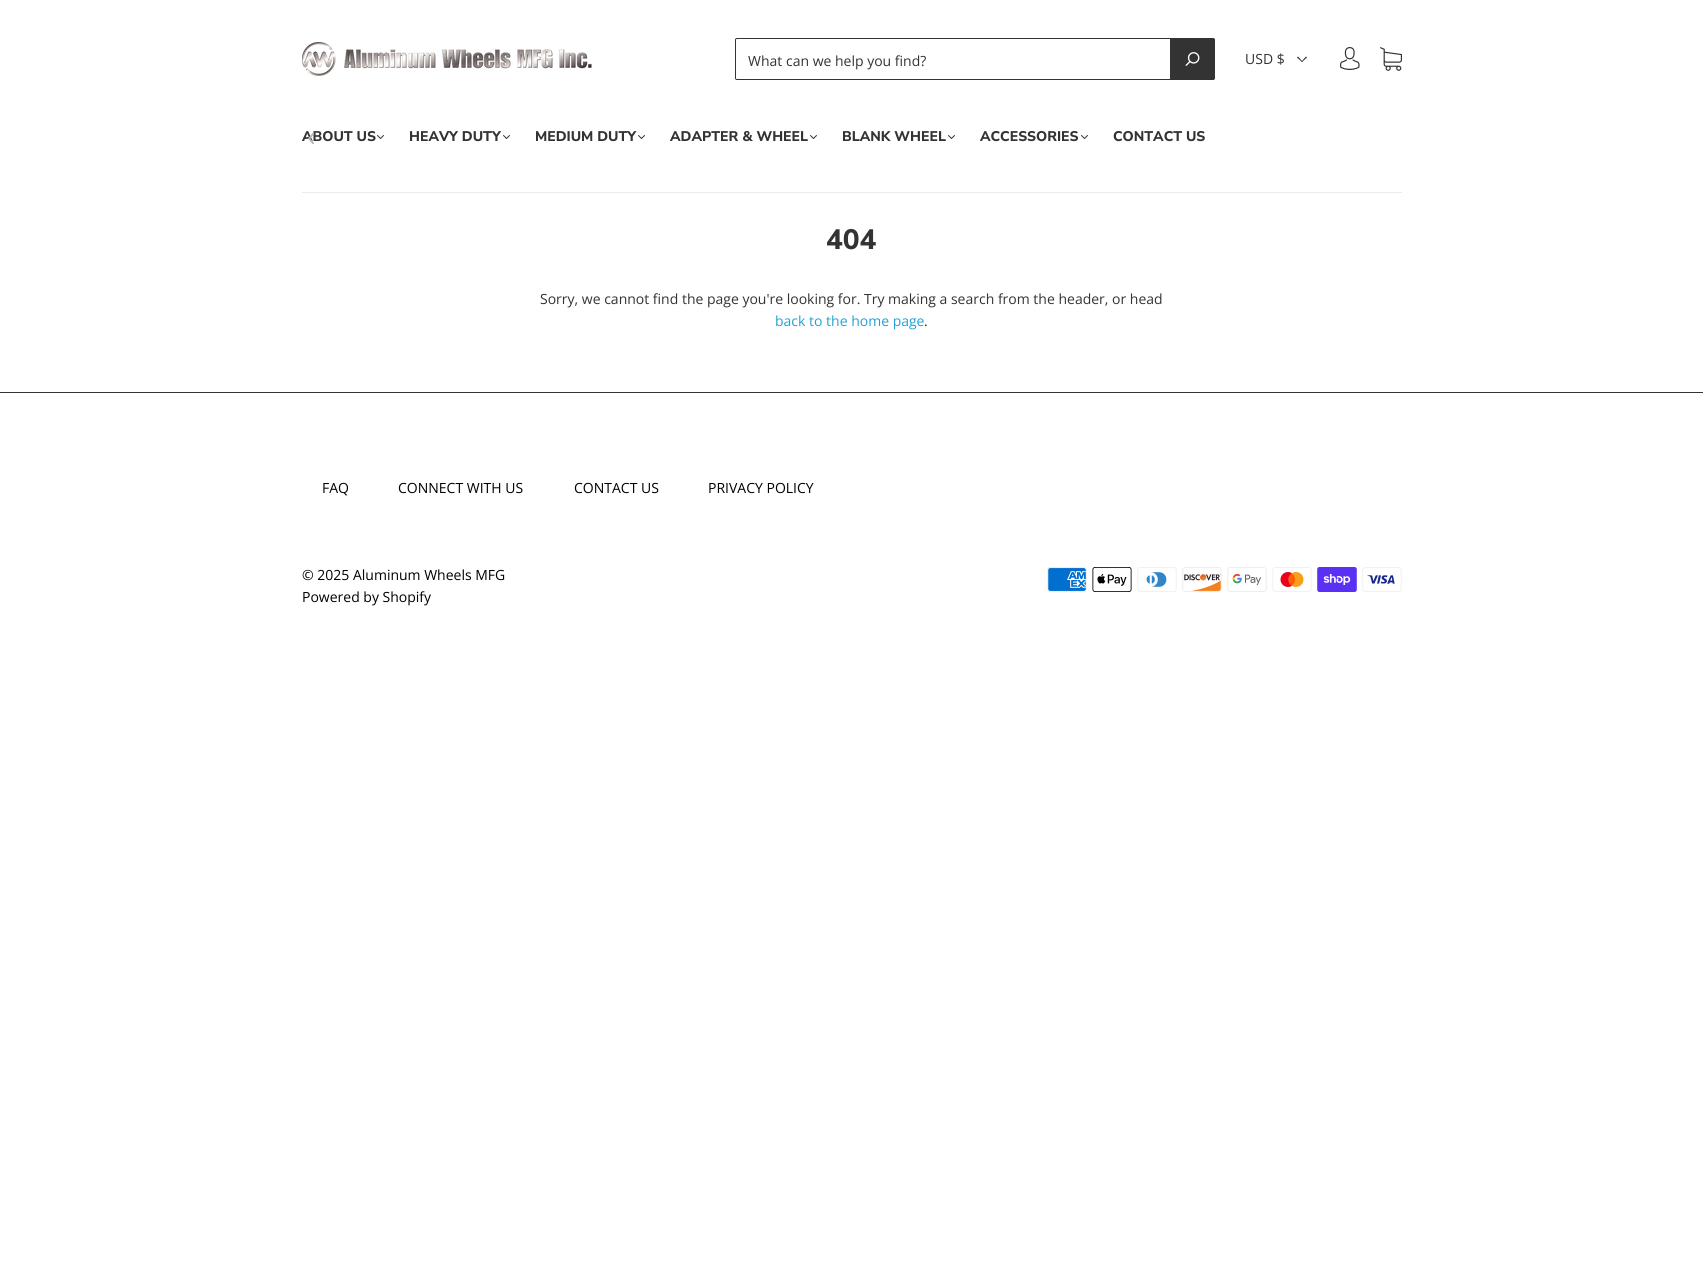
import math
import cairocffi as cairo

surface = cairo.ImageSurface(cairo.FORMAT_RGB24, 1703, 1280)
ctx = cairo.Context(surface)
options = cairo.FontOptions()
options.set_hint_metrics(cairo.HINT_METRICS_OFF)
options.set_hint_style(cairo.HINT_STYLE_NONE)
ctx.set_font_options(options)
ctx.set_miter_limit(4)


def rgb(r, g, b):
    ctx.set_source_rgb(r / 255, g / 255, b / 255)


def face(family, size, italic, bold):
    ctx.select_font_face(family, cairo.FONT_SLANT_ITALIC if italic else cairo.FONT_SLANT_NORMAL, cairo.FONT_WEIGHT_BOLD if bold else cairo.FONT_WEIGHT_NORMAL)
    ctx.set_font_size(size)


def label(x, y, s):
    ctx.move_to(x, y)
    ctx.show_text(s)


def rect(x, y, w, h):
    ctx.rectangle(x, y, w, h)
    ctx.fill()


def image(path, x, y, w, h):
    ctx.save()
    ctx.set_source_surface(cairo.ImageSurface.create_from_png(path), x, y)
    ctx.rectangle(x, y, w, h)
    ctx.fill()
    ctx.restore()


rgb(255, 255, 255)
ctx.paint()
image('image0.png', 302, 42, 290, 34)
ctx.new_path()
ctx.move_to(737, 38.5)
ctx.line_to(1181.5, 38.5)
ctx.line_to(1181.5, 79.5)
ctx.line_to(737, 79.5)
ctx.curve_to(736, 79.5, 735.5, 79, 735.5, 78)
ctx.line_to(735.5, 40)
ctx.curve_to(735.5, 39, 736, 38.5, 737, 38.5)
ctx.close_path()
rgb(51, 51, 51)
ctx.set_line_width(1)
ctx.stroke()
face('Open Sans', 14, 0, 0)
label(748, 66, 'What can we help you find?')
ctx.new_path()
ctx.move_to(1170.5, 38.5)
ctx.line_to(1213, 38.5)
ctx.curve_to(1214, 38.5, 1214.5, 39, 1214.5, 40)
ctx.line_to(1214.5, 78)
ctx.curve_to(1214.5, 79, 1214, 79.5, 1213, 79.5)
ctx.line_to(1170.5, 79.5)
ctx.close_path()
ctx.fill_preserve()
ctx.stroke()
image('image1.png', 1185, 52, 15, 14)
label(1245, 64, 'USD $')
ctx.new_path()
ctx.move_to(1306, 56.5)
ctx.line_to(1307, 57.5)
ctx.line_to(1302, 62)
ctx.line_to(1301.5, 61.5)
ctx.close_path()
ctx.fill()
ctx.new_path()
ctx.move_to(1298, 56.5)
ctx.line_to(1302.5, 61.5)
ctx.line_to(1302, 62)
ctx.line_to(1297, 57.5)
ctx.close_path()
ctx.fill()
image('image2.png', 1340, 47, 20, 23)
image('image3.png', 1380, 47, 22, 24)
face('Nunito Sans ExtraBold', 14, 0, 0)
label(302, 141, 'ABOUT US')
image('image4.png', 377, 135, 7, 4)
label(409, 141, 'HEAVY DUTY')
image('image4.png', 503, 135, 7, 4)
label(535, 141, 'MEDIUM DUTY')
image('image4.png', 638, 135, 7, 4)
label(670, 141, 'ADAPTER & WHEEL')
image('image4.png', 810, 135, 7, 4)
label(842, 141, 'BLANK WHEEL')
image('image4.png', 948, 135, 7, 4)
label(980, 141, 'ACCESSORIES')
image('image4.png', 1081, 135, 7, 4)
label(1113, 141, 'CONTACT US')
face('Open Sans', 28, 0, 0)
rgb(182, 182, 182)
label(307, 146, '‹')
rgb(235, 235, 235)
rect(302, 192, 1100, 1)
face('Nunito Sans ExtraBold', 28, 0, 0)
rgb(51, 51, 51)
label(826, 249, '404')
face('Open Sans', 14, 0, 0)
label(540, 304, 'Sorry, we cannot find the page you\'re looking for. Try making a search from the header, or head')
rgb(35, 161, 209)
label(775, 326, 'back to the home page')
rgb(51, 51, 51)
label(924, 326, '.')
rect(0, 392, 1703, 1)
rgb(0, 0, 0)
label(322, 493, 'FAQ')
label(398, 493, 'CONNECT WITH US')
label(574, 493, 'CONTACT US')
label(708, 493, 'PRIVACY POLICY')
label(302, 580, '© 2025 Aluminum Wheels MFG')
label(302, 602, 'Powered by Shopify')
image('image5.png', 1047, 567, 40, 25)
image('image6.png', 1092, 567, 40, 25)
image('image7.png', 1137, 567, 40, 25)
image('image8.png', 1182, 567, 40, 25)
image('image9.png', 1227, 567, 40, 25)
image('image10.png', 1272, 567, 40, 25)
image('image11.png', 1317, 567, 40, 25)
image('image12.png', 1362, 567, 40, 25)
surface.write_to_png('render.png')
